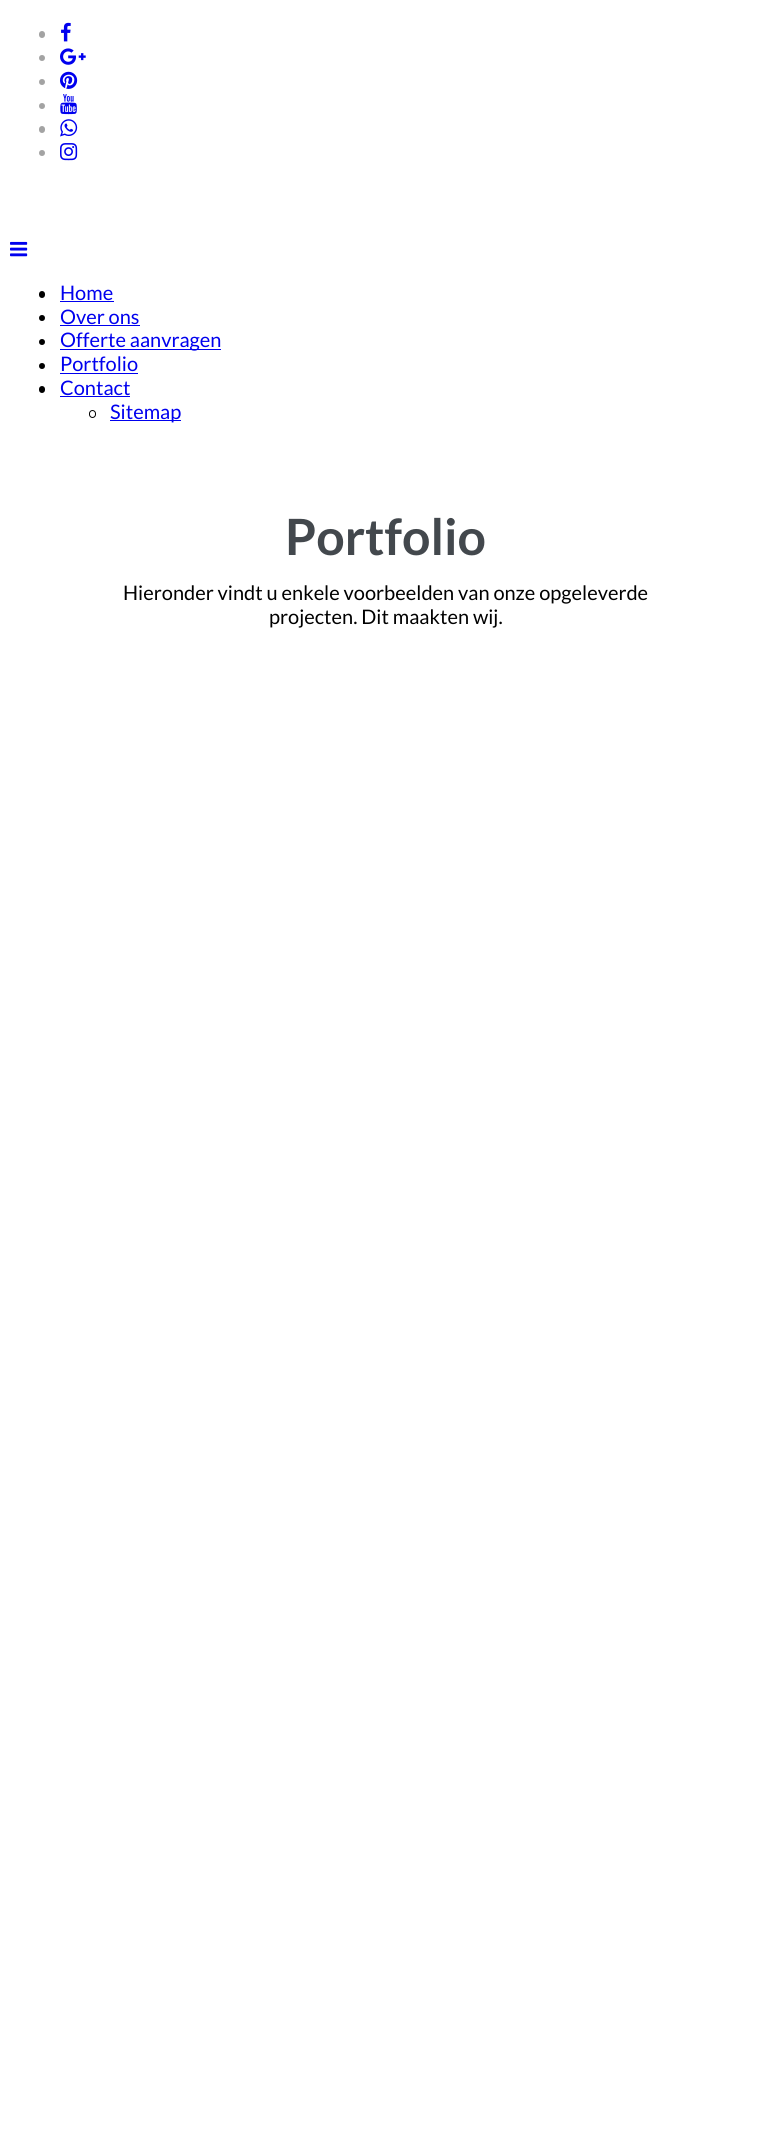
import math
import cairocffi as cairo

surface = cairo.ImageSurface(cairo.FORMAT_RGB24, 771, 2156)
ctx = cairo.Context(surface)
options = cairo.FontOptions()
options.set_hint_metrics(cairo.HINT_METRICS_OFF)
options.set_hint_style(cairo.HINT_STYLE_NONE)
ctx.set_font_options(options)
ctx.set_miter_limit(4)


def rgb(r, g, b):
    ctx.set_source_rgb(r / 255, g / 255, b / 255)


def face(family, size, italic, bold):
    ctx.select_font_face(family, cairo.FONT_SLANT_ITALIC if italic else cairo.FONT_SLANT_NORMAL, cairo.FONT_WEIGHT_BOLD if bold else cairo.FONT_WEIGHT_NORMAL)
    ctx.set_font_size(size)


def label(x, y, s):
    ctx.move_to(x, y)
    ctx.show_text(s)


def rect(x, y, w, h):
    ctx.rectangle(x, y, w, h)
    ctx.fill()


def rrect(x, y, w, h, r):
    ctx.new_sub_path()
    for i, (u, v) in enumerate([(x + w - r, y + h - r), (x + r, y + h - r), (x + r, y + r), (x + w - r, y + r)]):
        ctx.arc(u, v, r, i * math.pi / 2, (i + 1) * math.pi / 2)
    ctx.close_path()


def image(path, x, y, w, h):
    ctx.save()
    ctx.set_source_surface(cairo.ImageSurface.create_from_png(path), x, y)
    ctx.rectangle(x, y, w, h)
    ctx.fill()
    ctx.restore()


rgb(255, 255, 255)
ctx.paint()
rgb(163, 163, 163)
rrect(39, 31, 6, 7, 3)
ctx.fill()
image('image0.png', 61, 22, 10, 20)
ctx.arc(42, 58, 3, 0, 2 * math.pi)
ctx.fill()
image('image1.png', 60, 48, 26, 17)
ctx.arc(42, 82, 3, 0, 2 * math.pi)
ctx.fill()
image('image2.png', 60, 71, 18, 18)
ctx.arc(42, 106, 3, 0, 2 * math.pi)
ctx.fill()
image('image3.png', 60, 94, 17, 21)
rrect(39, 126, 6, 7, 3)
ctx.fill()
image('image4.png', 60, 119, 18, 18)
ctx.arc(42, 153, 3, 0, 2 * math.pi)
ctx.fill()
image('image5.png', 60, 143, 18, 18)
image('image6.png', 10, 241, 18, 16)
rgb(0, 0, 0)
rrect(39, 291, 6, 7, 3)
ctx.fill()
face('Lato', 20, 0, 0)
rgb(0, 0, 238)
label(60, 300, 'Home')
rect(60, 301, 54, 1)
rgb(0, 0, 0)
ctx.new_path()
ctx.arc(42, 318, 3, 0, 2 * math.pi)
ctx.fill()
rgb(0, 0, 238)
label(60, 324, 'Over ons')
rect(60, 325, 80, 1)
rgb(0, 0, 0)
ctx.new_path()
ctx.arc(42, 342, 3, 0, 2 * math.pi)
ctx.fill()
rgb(0, 0, 238)
rect(60, 349, 161, 1)
label(60, 347, 'Offerte aanvragen')
rgb(0, 0, 0)
ctx.new_path()
ctx.arc(42, 366, 3, 0, 2 * math.pi)
ctx.fill()
rgb(0, 0, 238)
label(60, 371, 'Portfolio')
rect(60, 373, 78, 1)
rgb(0, 0, 0)
rrect(39, 386, 6, 7, 3)
ctx.fill()
rgb(0, 0, 238)
label(60, 395, 'Contact')
rect(60, 396, 70, 1)
rrect(89.5, 410.5, 6, 7, 3)
rgb(0, 0, 0)
ctx.set_line_width(1)
ctx.stroke()
rgb(0, 0, 238)
rect(110, 420, 71, 1)
label(110, 419, 'Sitemap')
face('Lato', 50, 0, 1)
rgb(67, 72, 77)
label(285, 555, 'Portfolio')
face('Lato', 20, 0, 0)
rgb(0, 0, 0)
label(123, 600, 'Hieronder vindt u enkele voorbeelden van onze opgeleverde')
label(269, 624, 'projecten. Dit maakten wij.')
surface.write_to_png('render.png')
